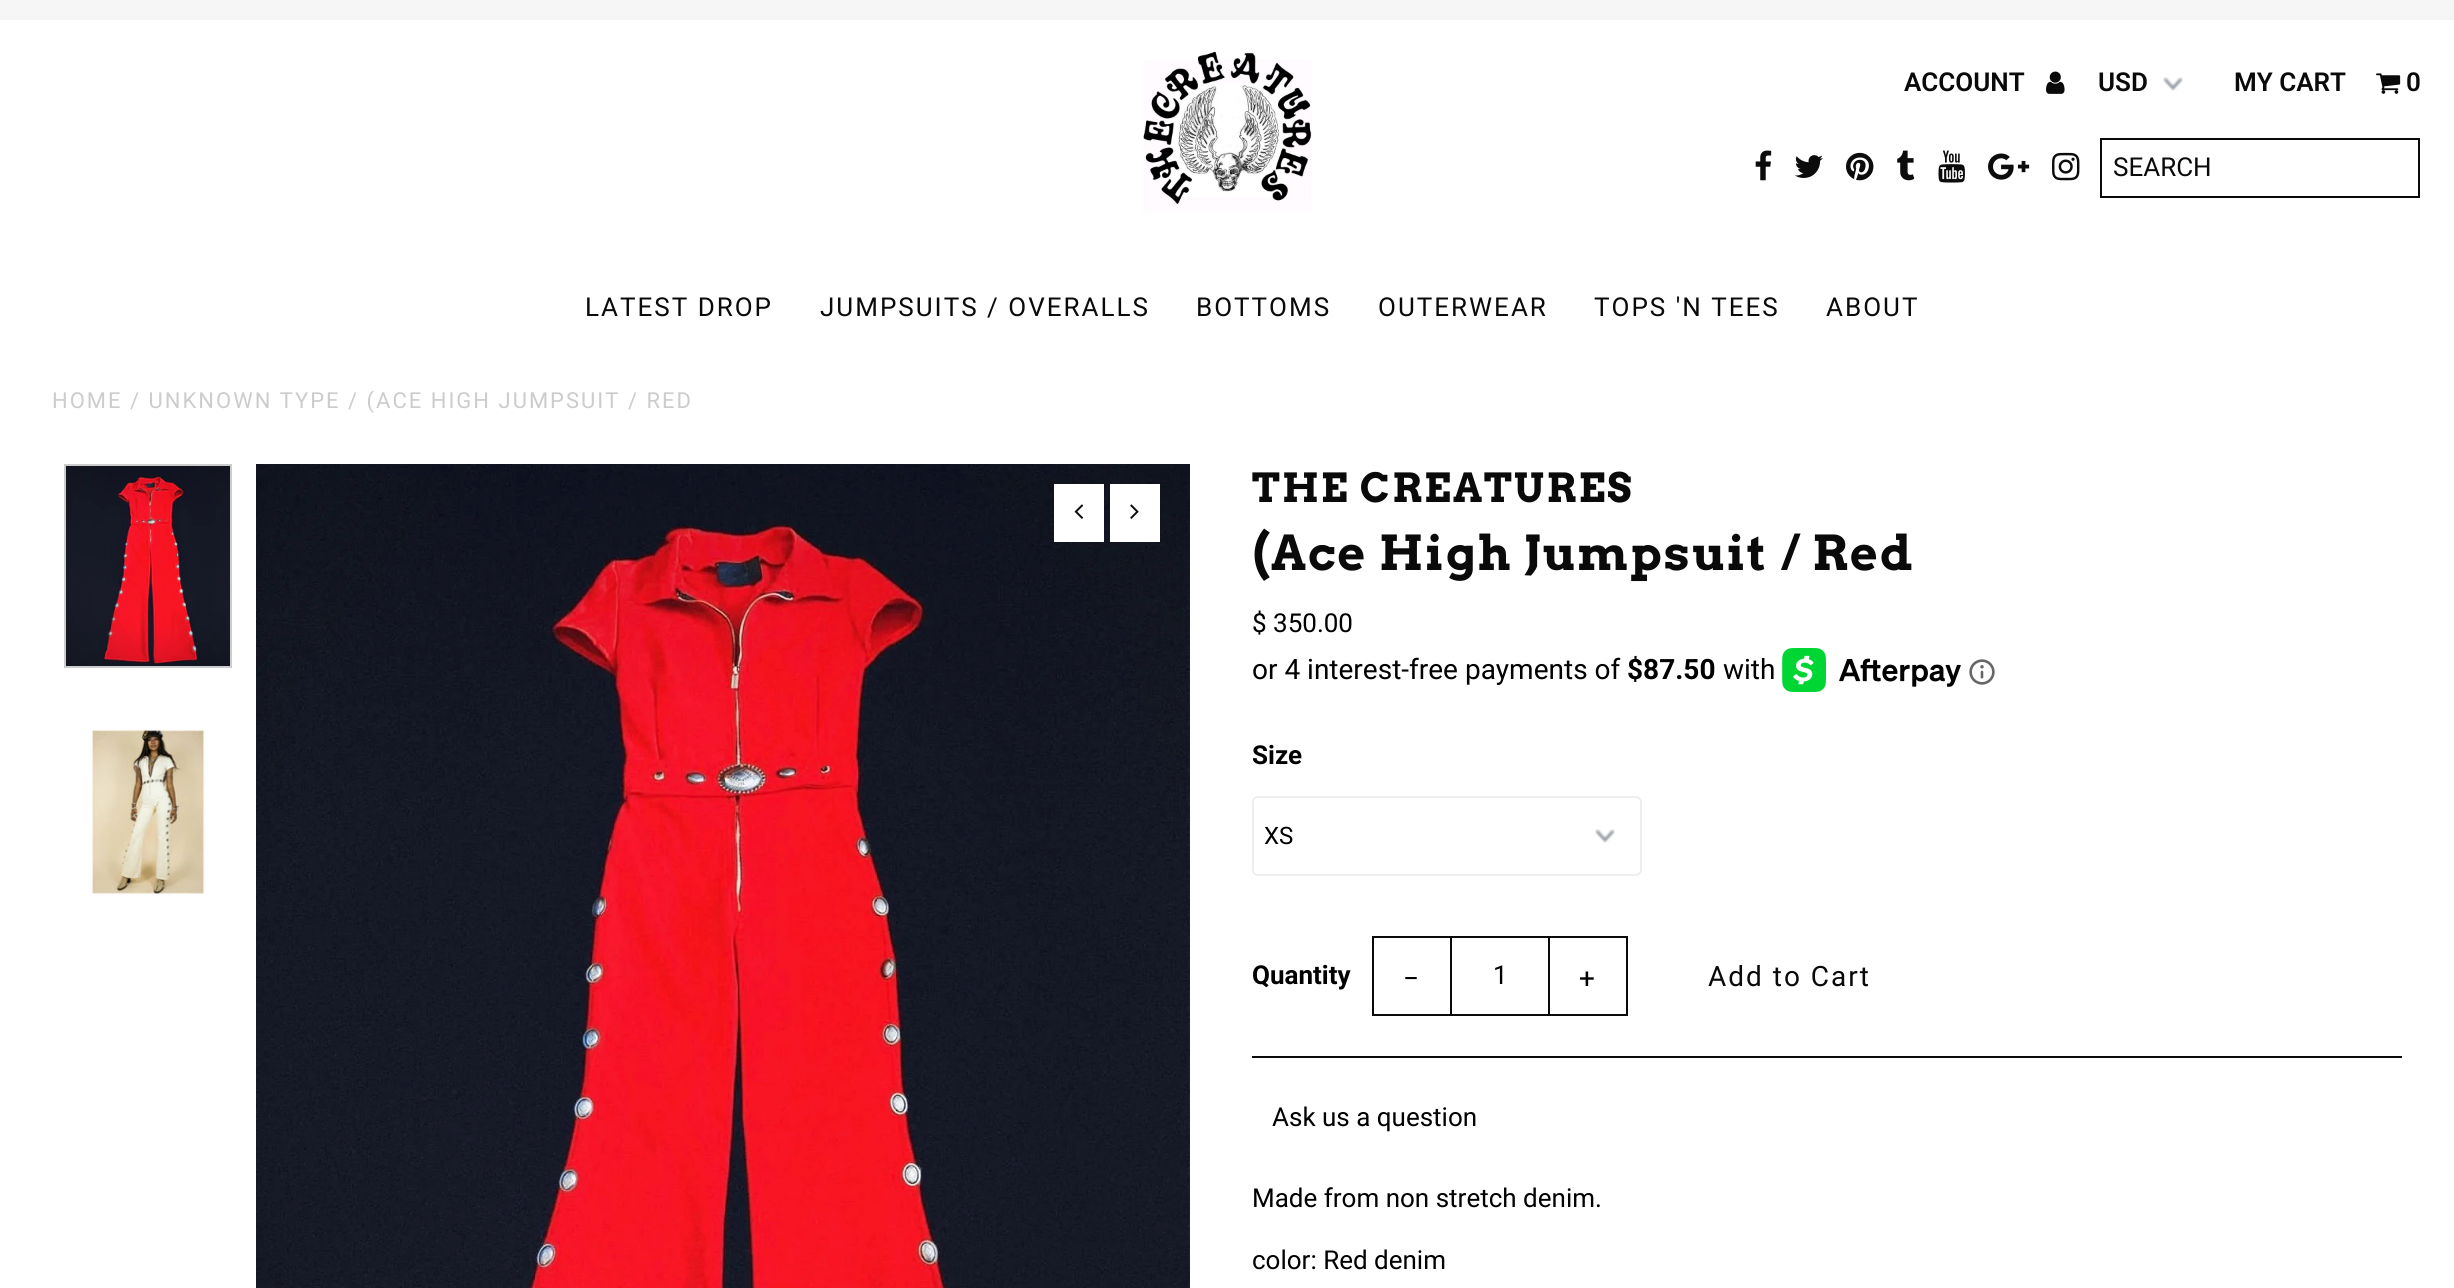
import math
import cairocffi as cairo

surface = cairo.ImageSurface(cairo.FORMAT_RGB24, 2454, 1288)
ctx = cairo.Context(surface)
options = cairo.FontOptions()
options.set_hint_metrics(cairo.HINT_METRICS_OFF)
options.set_hint_style(cairo.HINT_STYLE_NONE)
ctx.set_font_options(options)
ctx.set_miter_limit(4)


def rgb(r, g, b):
    ctx.set_source_rgb(r / 255, g / 255, b / 255)


def face(family, size, italic, bold):
    ctx.select_font_face(family, cairo.FONT_SLANT_ITALIC if italic else cairo.FONT_SLANT_NORMAL, cairo.FONT_WEIGHT_BOLD if bold else cairo.FONT_WEIGHT_NORMAL)
    ctx.set_font_size(size)


def label(x, y, s):
    ctx.move_to(x, y)
    ctx.show_text(s)


def tracked(x, y, s, letter, word):
    ctx.move_to(x, y)
    for ch in s:
        ctx.show_text(ch)
        ctx.rel_move_to(letter + word * (ch == ' '), 0)


def rect(x, y, w, h):
    ctx.rectangle(x, y, w, h)
    ctx.fill()


def rrect(x, y, w, h, r):
    ctx.new_sub_path()
    for i, (u, v) in enumerate([(x + w - r, y + h - r), (x + r, y + h - r), (x + r, y + r), (x + w - r, y + r)]):
        ctx.arc(u, v, r, i * math.pi / 2, (i + 1) * math.pi / 2)
    ctx.close_path()


def image(path, x, y, w, h):
    ctx.save()
    ctx.set_source_surface(cairo.ImageSurface.create_from_png(path), x, y)
    ctx.rectangle(x, y, w, h)
    ctx.fill()
    ctx.restore()


rgb(255, 255, 255)
ctx.paint()
rgb(246, 246, 246)
rect(0, 0, 2454, 20)
image('image0.png', 1143, 51, 169, 161)
face('Roboto SemiBold', 26, 0, 0)
rgb(11, 10, 10)
label(1904, 91, 'ACCOUNT')
image('image1.png', 2046, 71, 19, 23)
image('image2.png', 2163, 77, 20, 14)
label(2098, 91, 'USD')
label(2234, 91, 'MY CART')
image('image3.png', 2376, 73, 25, 21)
label(2406, 91, '0')
image('image4.png', 1755, 150, 17, 31)
image('image5.png', 1795, 155, 28, 23)
image('image6.png', 1846, 152, 28, 29)
image('image7.png', 1897, 150, 18, 31)
image('image8.png', 1938, 150, 27, 33)
image('image9.png', 1988, 153, 42, 27)
image('image10.png', 2052, 152, 28, 29)
ctx.rectangle(2101, 139, 318, 58)
ctx.stroke()
face('Roboto', 26, 0, 0)
label(2113, 176, 'SEARCH')
tracked(585, 316, 'LATEST DROP', 2, 0)
tracked(820, 316, 'JUMPSUITS / OVERALLS', 2, 0)
tracked(1196, 316, 'BOTTOMS', 2, 0)
tracked(1378, 316, 'OUTERWEAR', 2, 0)
tracked(1594, 316, 'TOPS \'N TEES', 2, 0)
tracked(1826, 316, 'ABOUT', 2, 0)
face('Roboto', 22, 0, 0)
rgb(204, 204, 204)
tracked(52, 408, 'HOME / UNKNOWN TYPE / (ACE HIGH JUMPSUIT / RED', 2, 0)
ctx.rectangle(65, 465, 166, 202)
ctx.stroke()
image('image11.png', 66, 466, 164, 200)
image('image12.png', 91, 729, 114, 167)
image('image13.png', 256, 464, 934, 824)
rgb(255, 255, 255)
rect(1054, 484, 50, 58)
image('image14.png', 1074, 504, 10, 15)
rect(1110, 484, 50, 58)
image('image15.png', 1130, 504, 9, 15)
face('Arvo', 40, 0, 1)
rgb(11, 10, 10)
tracked(1252, 502, 'THE CREATURES', 2, 0)
face('Arvo', 48, 0, 1)
tracked(1252, 570, '(Ace High Jumpsuit / Red', 2, 0)
face('Roboto', 26, 0, 0)
rgb(0, 0, 0)
label(1252, 632, '$ 350.00')
face('Roboto', 28, 0, 0)
label(1252, 679, 'or 4 interest-free payments of')
face('Roboto', 28, 0, 1)
label(1627, 679, '$87.50')
face('Roboto', 28, 0, 0)
label(1723, 679, 'with')
image('image16.png', 1782, 648, 179, 44)
image('image17.png', 1969, 659, 26, 26)
rgb(11, 10, 10)
rect(1252, 1056, 1150, 2)
face('Roboto', 26, 0, 1)
rgb(0, 0, 0)
label(1252, 764, 'Size')
image('image2.png', 1595, 829, 20, 14)
rrect(1253, 797, 388, 78, 5)
rgb(238, 238, 238)
ctx.stroke()
face('Roboto', 24, 0, 0)
rgb(0, 0, 0)
label(1264, 844, 'XS')
face('Roboto', 26, 0, 1)
label(1252, 984, 'Quantity')
ctx.rectangle(1373, 937, 78, 78)
rgb(11, 10, 10)
ctx.stroke()
face('Roboto', 28, 0, 0)
rgb(0, 0, 0)
tracked(1403, 988, '−', 2, 0)
ctx.rectangle(1451, 937, 98, 78)
rgb(11, 10, 10)
ctx.stroke()
face('Roboto', 26, 0, 0)
rgb(0, 0, 0)
label(1493, 984, '1')
ctx.rectangle(1549, 937, 78, 78)
rgb(11, 10, 10)
ctx.stroke()
face('Roboto', 28, 0, 0)
rgb(0, 0, 0)
tracked(1579, 988, '+', 2, 0)
rgb(11, 10, 10)
tracked(1708, 986, 'Add to Cart', 2, 0)
face('Roboto', 26, 0, 0)
rgb(0, 0, 0)
label(1272, 1126, 'Ask us a question')
label(1252, 1207, 'Made from non stretch denim.')
label(1252, 1269, 'color: Red denim')
surface.write_to_png('render.png')
